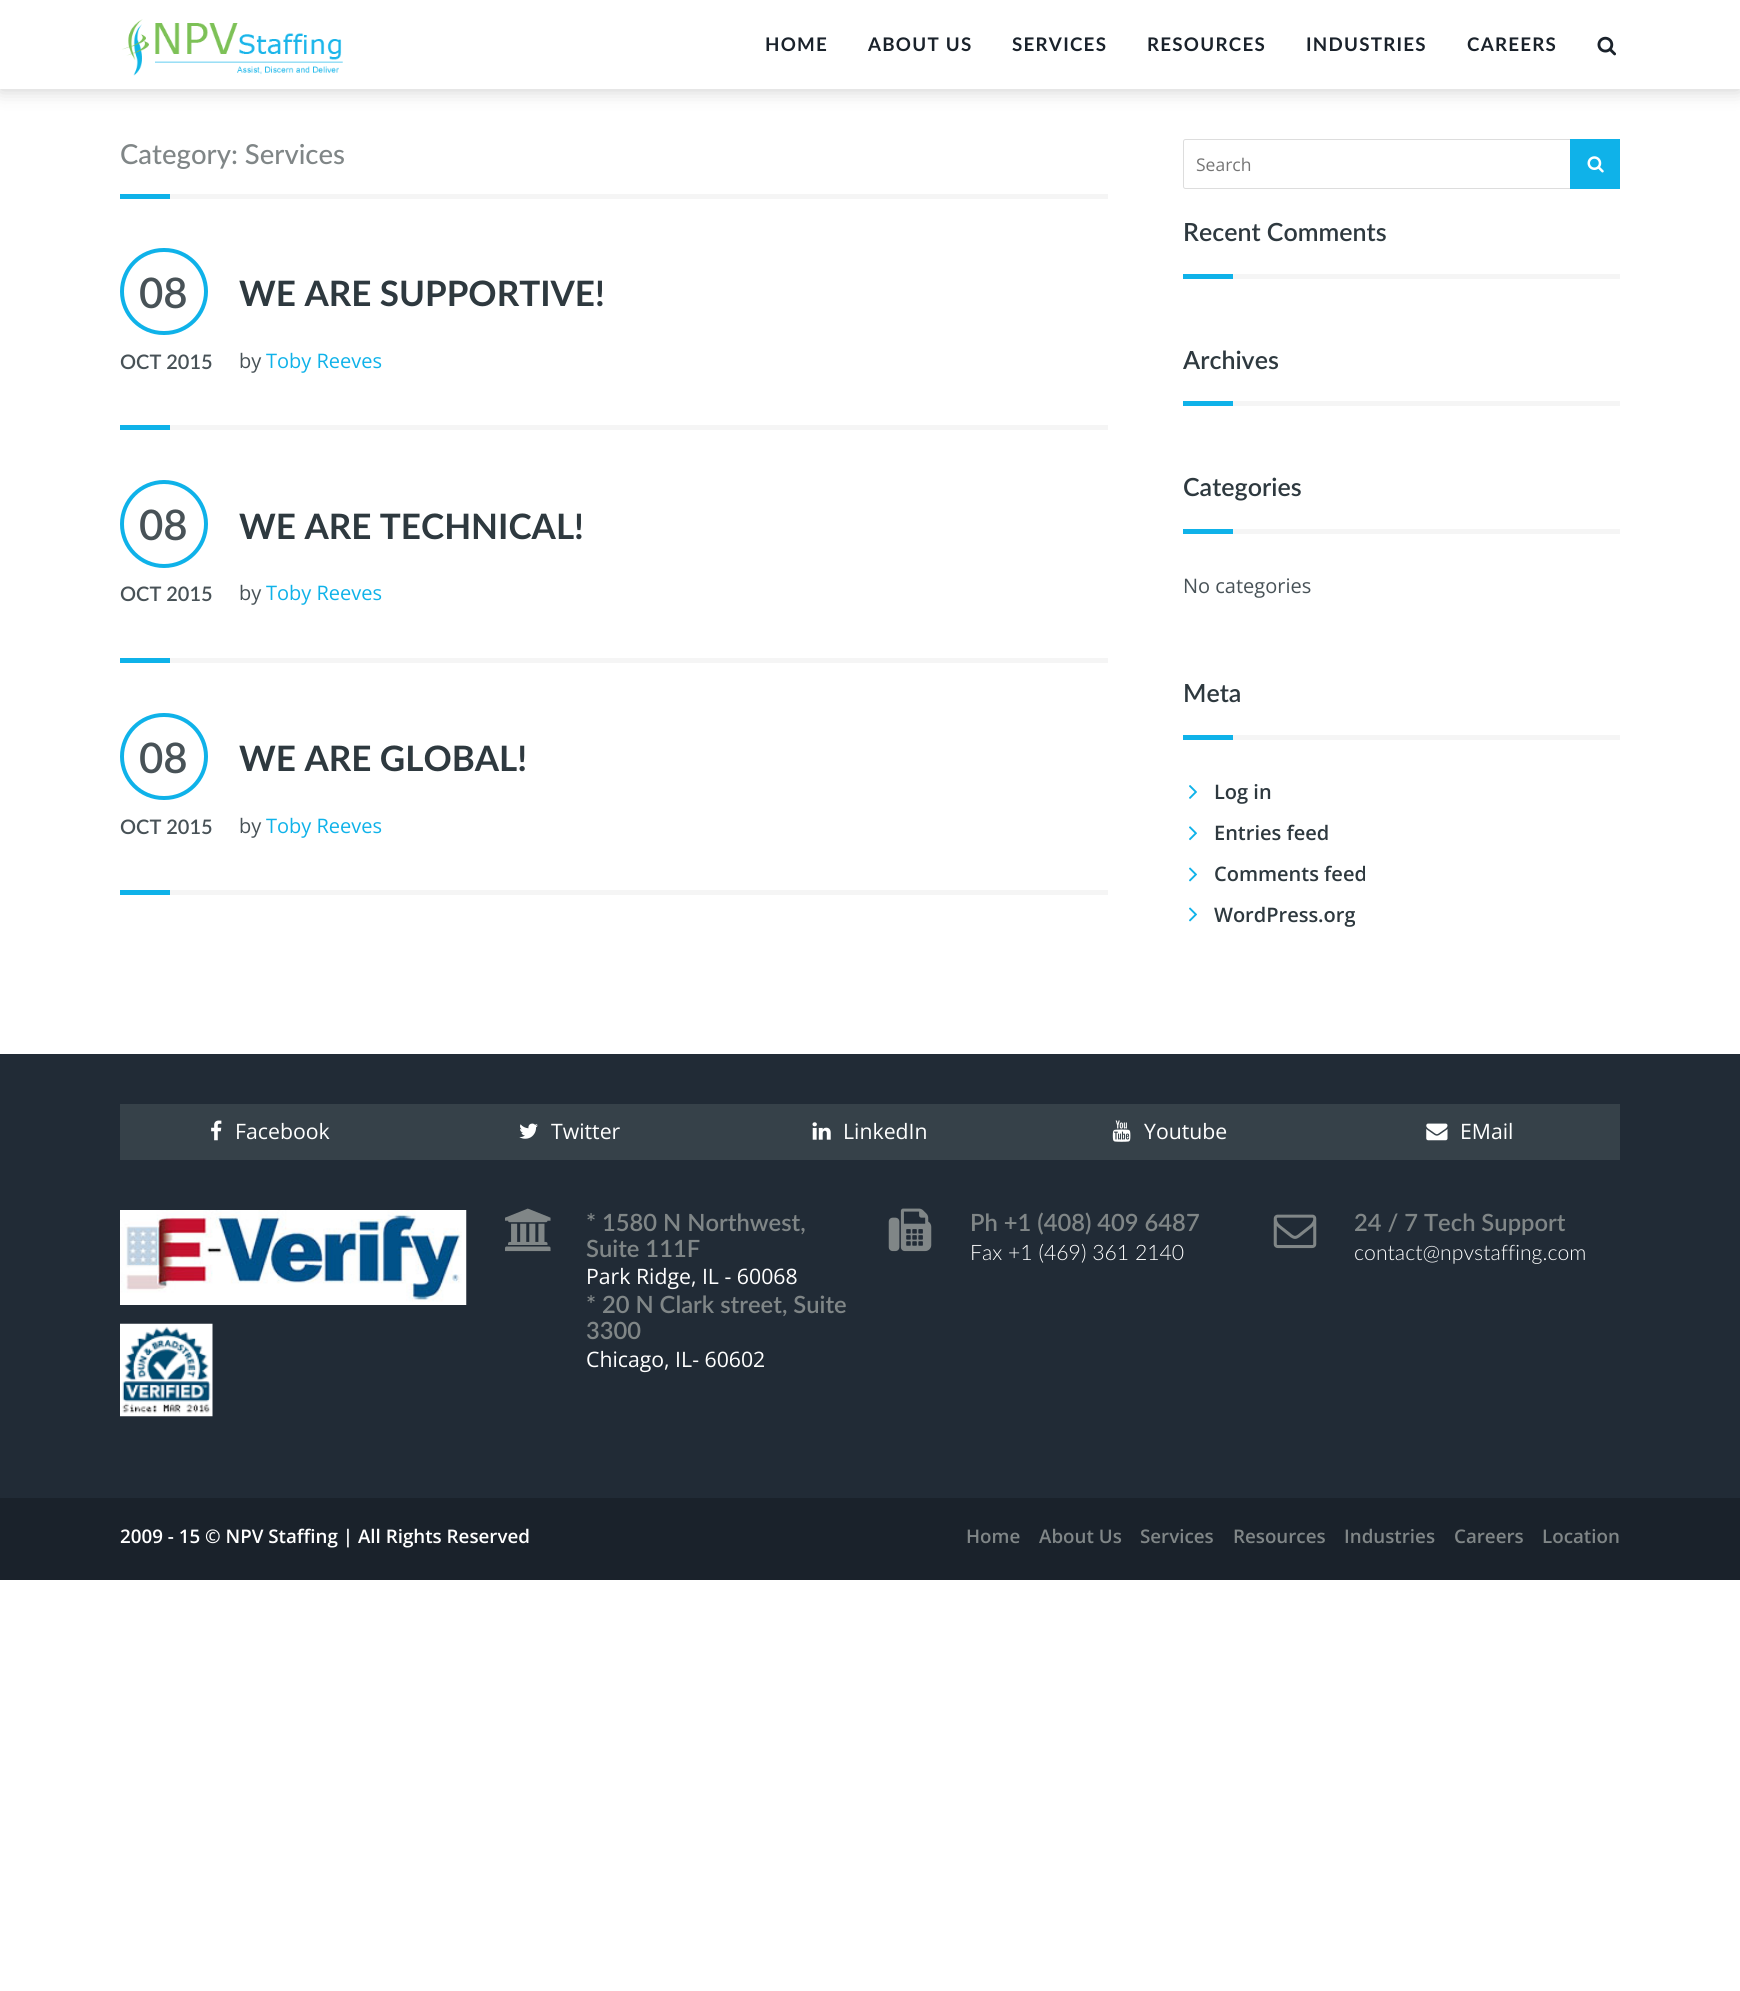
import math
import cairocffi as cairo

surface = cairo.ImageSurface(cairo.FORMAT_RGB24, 1740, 1991)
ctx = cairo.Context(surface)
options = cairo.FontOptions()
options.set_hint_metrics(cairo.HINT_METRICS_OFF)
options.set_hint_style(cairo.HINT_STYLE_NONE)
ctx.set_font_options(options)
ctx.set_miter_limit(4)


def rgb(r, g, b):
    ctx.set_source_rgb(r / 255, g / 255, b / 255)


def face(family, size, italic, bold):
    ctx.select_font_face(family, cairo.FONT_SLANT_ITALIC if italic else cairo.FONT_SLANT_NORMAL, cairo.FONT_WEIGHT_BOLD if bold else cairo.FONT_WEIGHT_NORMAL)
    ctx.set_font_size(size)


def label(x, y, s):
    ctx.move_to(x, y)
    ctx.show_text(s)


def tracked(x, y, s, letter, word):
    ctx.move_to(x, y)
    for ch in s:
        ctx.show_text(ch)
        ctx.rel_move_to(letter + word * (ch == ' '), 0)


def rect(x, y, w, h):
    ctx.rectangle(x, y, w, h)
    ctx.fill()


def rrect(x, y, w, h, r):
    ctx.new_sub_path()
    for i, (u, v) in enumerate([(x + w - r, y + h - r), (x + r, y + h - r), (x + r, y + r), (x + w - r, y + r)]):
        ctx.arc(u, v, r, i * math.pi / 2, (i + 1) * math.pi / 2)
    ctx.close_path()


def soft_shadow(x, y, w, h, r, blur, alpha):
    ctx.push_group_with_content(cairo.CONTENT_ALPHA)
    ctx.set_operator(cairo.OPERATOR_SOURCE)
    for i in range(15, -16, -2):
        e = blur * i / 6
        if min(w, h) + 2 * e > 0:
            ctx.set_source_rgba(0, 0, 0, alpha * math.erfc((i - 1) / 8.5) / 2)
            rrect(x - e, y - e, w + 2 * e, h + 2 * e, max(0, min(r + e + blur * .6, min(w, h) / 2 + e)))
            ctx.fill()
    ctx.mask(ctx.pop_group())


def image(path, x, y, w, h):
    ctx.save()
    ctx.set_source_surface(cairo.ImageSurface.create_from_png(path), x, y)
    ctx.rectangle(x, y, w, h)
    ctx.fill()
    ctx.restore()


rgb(255, 255, 255)
ctx.paint()
rgb(0, 0, 0)
soft_shadow(0, 1, 1740, 89, 0, 9.5, 0.2)
rgb(255, 255, 255)
rect(0, 0, 1740, 89)
image('image0.png', 122, 19, 221, 57)
face('Lato', 18.75, 0, 1)
rgb(26, 34, 43)
tracked(765, 51, 'HOME', 1.25, 0)
tracked(868, 51, 'ABOUT US', 1.25, 0)
tracked(1012, 51, 'SERVICES', 1.25, 0)
tracked(1147, 51, 'RESOURCES', 1.25, 0)
tracked(1306, 51, 'INDUSTRIES', 1.25, 0)
tracked(1467, 51, 'CAREERS', 1.25, 0)
image('image1.png', 1597, 36, 19, 20)
face('Lato Medium', 27.5, 0, 0)
rgb(128, 134, 135)
label(120, 164, 'Category: Services')
rgb(245, 245, 245)
rect(170, 194, 938, 5)
rgb(15, 178, 233)
rect(120, 194, 50, 5)
rrect(122, 250, 84, 83, 41.5)
ctx.set_line_width(4)
ctx.stroke()
face('Lato SemiBold', 42, 0, 0)
rgb(72, 82, 87)
label(139, 308, '08')
face('Lato SemiBold', 20, 0, 0)
label(120, 369, 'OCT 2015')
face('Lato', 35, 0, 1)
rgb(46, 57, 63)
label(239, 306, 'WE ARE SUPPORTIVE!')
face('Open Sans', 20, 0, 0)
rgb(72, 82, 87)
label(239, 368, 'by')
rgb(15, 178, 233)
label(266, 368, 'Toby Reeves')
rgb(245, 245, 245)
rect(170, 425, 938, 5)
rgb(15, 178, 233)
rect(120, 425, 50, 5)
ctx.new_path()
ctx.arc(164, 524, 42, 0, 2 * math.pi)
ctx.stroke()
face('Lato SemiBold', 42, 0, 0)
rgb(72, 82, 87)
label(139, 540, '08')
face('Lato SemiBold', 20, 0, 0)
label(120, 601, 'OCT 2015')
face('Lato', 35, 0, 1)
rgb(46, 57, 63)
label(239, 539, 'WE ARE TECHNICAL!')
face('Open Sans', 20, 0, 0)
rgb(72, 82, 87)
label(239, 600, 'by')
rgb(15, 178, 233)
label(266, 600, 'Toby Reeves')
rgb(245, 245, 245)
rect(170, 658, 938, 5)
rgb(15, 178, 233)
rect(120, 658, 50, 5)
rrect(122, 715, 84, 83, 41.5)
ctx.stroke()
face('Lato SemiBold', 42, 0, 0)
rgb(72, 82, 87)
label(139, 773, '08')
face('Lato SemiBold', 20, 0, 0)
label(120, 834, 'OCT 2015')
face('Lato', 35, 0, 1)
rgb(46, 57, 63)
label(239, 771, 'WE ARE GLOBAL!')
face('Open Sans', 20, 0, 0)
rgb(72, 82, 87)
label(239, 833, 'by')
rgb(15, 178, 233)
label(266, 833, 'Toby Reeves')
rgb(245, 245, 245)
rect(170, 890, 938, 5)
rgb(15, 178, 233)
rect(120, 890, 50, 5)
rrect(1183.5, 139.5, 436, 49, 2)
rgb(221, 221, 221)
ctx.set_line_width(1)
ctx.stroke()
face('Open Sans', 17.5, 0, 0)
rgb(117, 117, 117)
label(1196, 171, 'Search')
rgb(15, 178, 233)
rect(1570, 139, 50, 50)
image('image2.png', 1587, 156, 17, 17)
face('Lato SemiBold', 25, 0, 0)
rgb(46, 57, 63)
label(1183, 241, 'Recent Comments')
rgb(245, 245, 245)
rect(1233, 274, 387, 5)
rgb(15, 178, 233)
rect(1183, 274, 50, 5)
rgb(46, 57, 63)
label(1183, 369, 'Archives')
rgb(245, 245, 245)
rect(1233, 401, 387, 5)
rgb(15, 178, 233)
rect(1183, 401, 50, 5)
rgb(46, 57, 63)
label(1183, 496, 'Categories')
rgb(245, 245, 245)
rect(1233, 529, 387, 5)
rgb(15, 178, 233)
rect(1183, 529, 50, 5)
face('Open Sans', 20, 0, 0)
rgb(72, 82, 87)
label(1183, 593, 'No categories')
face('Lato SemiBold', 25, 0, 0)
rgb(46, 57, 63)
label(1183, 702, 'Meta')
rgb(245, 245, 245)
rect(1233, 735, 387, 5)
rgb(15, 178, 233)
rect(1183, 735, 50, 5)
image('image3.png', 1189, 785, 8, 14)
face('Open Sans SemiBold', 20, 0, 0)
rgb(46, 57, 63)
label(1214, 799, 'Log in')
image('image4.png', 1189, 826, 8, 15)
label(1214, 840, 'Entries feed')
image('image5.png', 1189, 867, 8, 15)
label(1214, 881, 'Comments feed')
image('image5.png', 1189, 907, 8, 15)
label(1214, 922, 'WordPress.org')
rgb(33, 43, 54)
rect(0, 1054, 1740, 444)
rgb(54, 65, 73)
rect(120, 1104, 1500, 56)
image('image6.png', 211, 1120, 11, 21)
face('Open Sans', 21.25, 0, 0)
rgb(255, 255, 255)
label(235, 1139, 'Facebook')
image('image7.png', 519, 1123, 19, 16)
label(551, 1139, 'Twitter')
image('image8.png', 812, 1122, 19, 18)
label(843, 1139, 'LinkedIn')
image('image9.png', 1112, 1120, 19, 22)
label(1144, 1139, 'Youtube')
image('image10.png', 1426, 1123, 22, 18)
label(1460, 1139, 'EMail')
image('image11.png', 120, 1210, 347, 95)
image('image12.png', 120, 1323, 93, 94)
image('image13.png', 505, 1208, 46, 44)
face('Lato SemiBold', 23.75, 0, 0)
rgb(128, 134, 135)
label(586, 1231, '* 1580 N Northwest,')
label(586, 1257, 'Suite 111F')
face('Open Sans', 21.25, 0, 0)
rgb(255, 255, 255)
label(586, 1284, 'Park Ridge, IL - 60068')
face('Lato SemiBold', 23.75, 0, 0)
rgb(128, 134, 135)
label(586, 1313, '* 20 N Clark street, Suite')
label(586, 1339, '3300')
face('Open Sans', 21.25, 0, 0)
rgb(255, 255, 255)
label(586, 1367, 'Chicago, IL- 60602')
image('image14.png', 888, 1208, 44, 44)
face('Lato SemiBold', 23.75, 0, 0)
rgb(128, 134, 135)
label(970, 1231, 'Ph +1 (408) 409 6487')
face('Lato Light', 21.25, 0, 0)
rgb(255, 255, 255)
label(970, 1260, 'Fax +1 (469) 361 2140')
image('image15.png', 1273, 1214, 44, 35)
face('Lato SemiBold', 23.75, 0, 0)
rgb(128, 134, 135)
label(1354, 1231, '24 / 7 Tech Support')
face('Lato Light', 21.25, 0, 0)
rgb(255, 255, 255)
label(1354, 1260, 'contact@npvstaffing.com')
rgb(26, 34, 43)
rect(0, 1498, 1740, 82)
face('Open Sans SemiBold', 18.75, 0, 0)
rgb(255, 255, 255)
label(120, 1543, '2009 - 15 © NPV Staffing | All Rights Reserved')
rgb(128, 134, 135)
label(966, 1543, 'Home')
label(1039, 1543, 'About Us')
label(1140, 1543, 'Services')
label(1233, 1543, 'Resources')
label(1344, 1543, 'Industries')
label(1454, 1543, 'Careers')
label(1542, 1543, 'Location')
surface.write_to_png('render.png')
